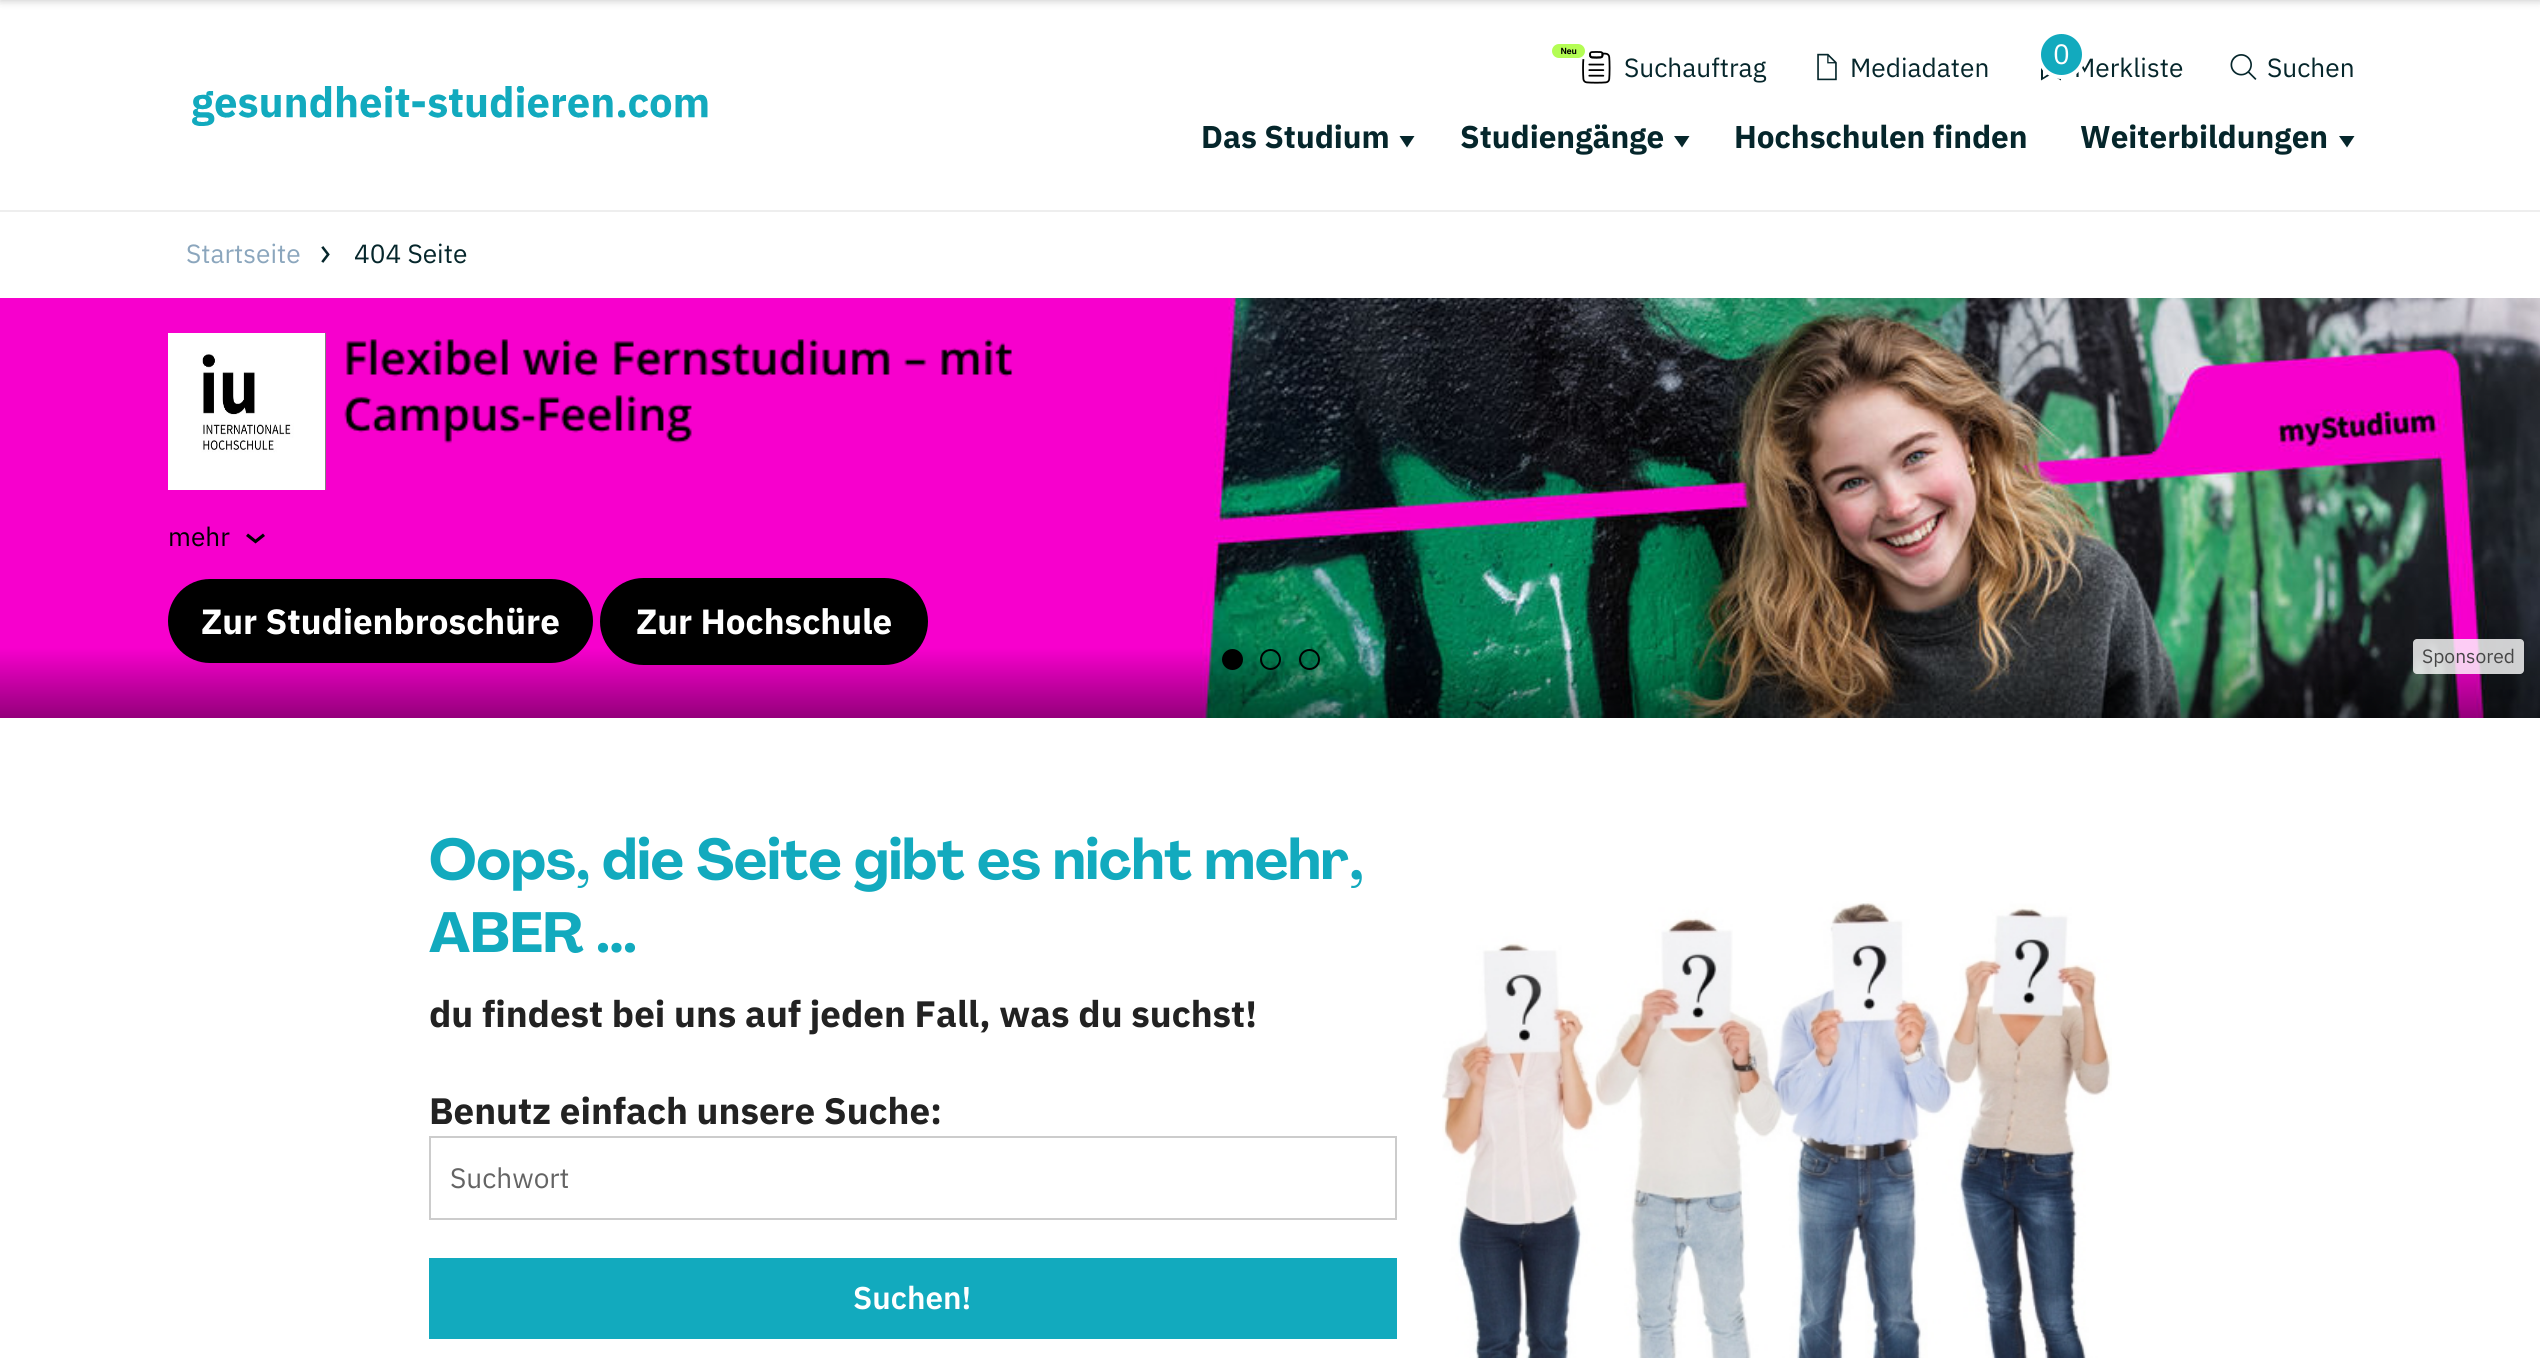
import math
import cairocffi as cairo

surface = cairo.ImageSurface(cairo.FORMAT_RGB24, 2540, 1358)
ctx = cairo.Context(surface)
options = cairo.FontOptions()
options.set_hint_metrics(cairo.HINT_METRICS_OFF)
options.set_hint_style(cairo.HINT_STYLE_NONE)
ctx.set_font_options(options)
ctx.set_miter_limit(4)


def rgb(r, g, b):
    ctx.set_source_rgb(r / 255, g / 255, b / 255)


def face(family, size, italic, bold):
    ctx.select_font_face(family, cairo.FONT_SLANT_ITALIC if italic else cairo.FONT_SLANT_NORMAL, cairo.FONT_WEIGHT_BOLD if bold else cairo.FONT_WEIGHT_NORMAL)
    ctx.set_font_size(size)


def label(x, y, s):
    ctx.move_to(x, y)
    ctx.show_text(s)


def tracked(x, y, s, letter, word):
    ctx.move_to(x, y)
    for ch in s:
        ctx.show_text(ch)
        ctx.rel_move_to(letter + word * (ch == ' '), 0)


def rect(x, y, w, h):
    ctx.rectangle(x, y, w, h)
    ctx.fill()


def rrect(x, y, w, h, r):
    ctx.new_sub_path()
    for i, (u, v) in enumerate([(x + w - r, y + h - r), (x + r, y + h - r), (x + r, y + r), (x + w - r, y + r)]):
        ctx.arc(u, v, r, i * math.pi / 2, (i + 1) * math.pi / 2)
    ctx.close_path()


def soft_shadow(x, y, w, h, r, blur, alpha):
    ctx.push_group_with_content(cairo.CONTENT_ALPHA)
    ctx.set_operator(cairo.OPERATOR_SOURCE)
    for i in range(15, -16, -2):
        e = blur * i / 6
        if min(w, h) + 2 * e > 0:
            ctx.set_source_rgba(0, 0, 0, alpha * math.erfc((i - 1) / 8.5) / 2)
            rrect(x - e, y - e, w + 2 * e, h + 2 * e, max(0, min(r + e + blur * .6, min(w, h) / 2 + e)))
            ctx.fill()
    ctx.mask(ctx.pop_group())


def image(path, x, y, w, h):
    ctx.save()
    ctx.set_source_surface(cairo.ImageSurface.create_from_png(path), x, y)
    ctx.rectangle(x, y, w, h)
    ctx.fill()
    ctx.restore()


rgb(255, 255, 255)
ctx.paint()
rgb(0, 0, 0)
soft_shadow(0, -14, 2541, 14, 0, 4.5, 0.25)
image('image0.png', 192, 86, 516, 40)
image('image1.png', 1552, 44, 59, 40)
face('IBM Plex Sans', 26.25, 0, 0)
rgb(5, 38, 43)
label(1624, 77, 'Suchauftrag')
image('image2.png', 1817, 53, 20, 28)
label(1850, 77, 'Mediadaten')
ctx.new_path()
ctx.move_to(2041, 53.5)
ctx.line_to(2041, 80.5)
ctx.line_to(2051, 74.5)
ctx.line_to(2061, 80.5)
ctx.line_to(2061, 53.5)
ctx.close_path()
ctx.move_to(2059, 77.5)
ctx.line_to(2051, 72)
ctx.line_to(2043, 77.5)
ctx.line_to(2043, 55.5)
ctx.line_to(2059, 55.5)
ctx.close_path()
ctx.fill()
label(2074, 77, 'Merkliste')
rgb(18, 170, 190)
ctx.new_path()
ctx.arc(2061.5, 54.5, 22.5, 0, 2 * math.pi)
ctx.fill_preserve()
rgb(255, 255, 255)
ctx.set_line_width(4)
ctx.stroke()
face('IBM Plex Sans', 28, 0, 0)
tracked(2053, 64, '0', -4, 0)
image('image3.png', 2230, 54, 27, 26)
face('IBM Plex Sans', 26.25, 0, 0)
rgb(5, 38, 43)
label(2267, 77, 'Suchen')
face('IBM Plex Sans', 31.5, 0, 1)
label(1201, 148, 'Das Studium')
ctx.new_path()
ctx.move_to(1414.5, 136)
ctx.line_to(1407, 147.5)
ctx.line_to(1399.5, 136)
ctx.close_path()
ctx.fill()
label(1460, 148, 'Studiengänge')
ctx.new_path()
ctx.move_to(1689.5, 136)
ctx.line_to(1682, 147.5)
ctx.line_to(1674, 136)
ctx.close_path()
ctx.fill()
label(1734, 148, 'Hochschulen finden')
label(2080, 148, 'Weiterbildungen')
ctx.new_path()
ctx.move_to(2354.5, 136)
ctx.line_to(2347, 147.5)
ctx.line_to(2339, 136)
ctx.close_path()
ctx.fill()
rgb(238, 238, 238)
rect(0, 210, 2540, 2)
face('IBM Plex Sans', 26.25, 0, 0)
rgb(139, 166, 189)
label(186, 263, 'Startseite')
image('image4.png', 321, 246, 9, 17)
rgb(5, 38, 43)
label(354, 263, '404 Seite')
image('image5.png', 0, 298, 2540, 420)
rgb(0, 0, 0)
rect(325, 333, 1, 157)
image('image6.png', 168, 333, 158, 157)
image('image7.png', 344, 339, 669, 105)
label(168, 546, 'mehr')
ctx.new_path()
ctx.move_to(265, 536)
ctx.line_to(255.5, 543.5)
ctx.line_to(246, 536)
ctx.line_to(248, 533.5)
ctx.line_to(255.5, 539.5)
ctx.line_to(263, 533.5)
ctx.close_path()
ctx.fill()
rrect(168, 579, 425, 84, 42)
ctx.fill()
face('IBM Plex Sans', 35, 0, 1)
rgb(255, 255, 255)
label(201, 634, 'Zur Studienbroschüre')
rgb(0, 0, 0)
rrect(601, 579, 326, 85, 42.5)
ctx.fill_preserve()
ctx.set_line_width(2)
ctx.stroke()
rgb(255, 255, 255)
label(636, 634, 'Zur Hochschule')
rgb(0, 0, 0)
ctx.new_path()
ctx.arc(1232.5, 659.5, 9.5, 0, 2 * math.pi)
ctx.fill_preserve()
ctx.stroke()
ctx.arc(1270.5, 659.5, 9.5, 0, 2 * math.pi)
ctx.stroke()
ctx.arc(1309.5, 659.5, 9.5, 0, 2 * math.pi)
ctx.stroke()
ctx.set_source_rgba(1, 1, 1, 0.8)
rrect(2413, 639, 111, 35, 4)
ctx.fill()
face('IBM Plex Sans', 19.25, 0, 0)
rgb(69, 69, 69)
label(2422, 663, 'Sponsored')
face('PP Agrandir', 56, 0, 1)
rgb(18, 170, 190)
label(429, 879, 'Oops, die Seite gibt es nicht mehr,')
label(429, 952, 'ABER ...')
face('IBM Plex Sans', 36.75, 0, 1)
rgb(34, 34, 34)
label(429, 1027, 'du findest bei uns auf jeden Fall, was du suchst!')
label(429, 1124, 'Benutz einfach unsere Suche:')
ctx.rectangle(430, 1137, 966, 82)
rgb(204, 204, 204)
ctx.stroke()
face('IBM Plex Sans', 28, 0, 0)
rgb(100, 100, 100)
label(450, 1188, 'Suchwort')
rgb(18, 170, 190)
rect(429, 1258, 968, 81)
face('IBM Plex Sans SemiBold', 31.5, 0, 0)
rgb(255, 255, 255)
label(853, 1309, 'Suchen!')
image('image8.png', 1442, 901, 670, 457)
surface.write_to_png('render.png')
